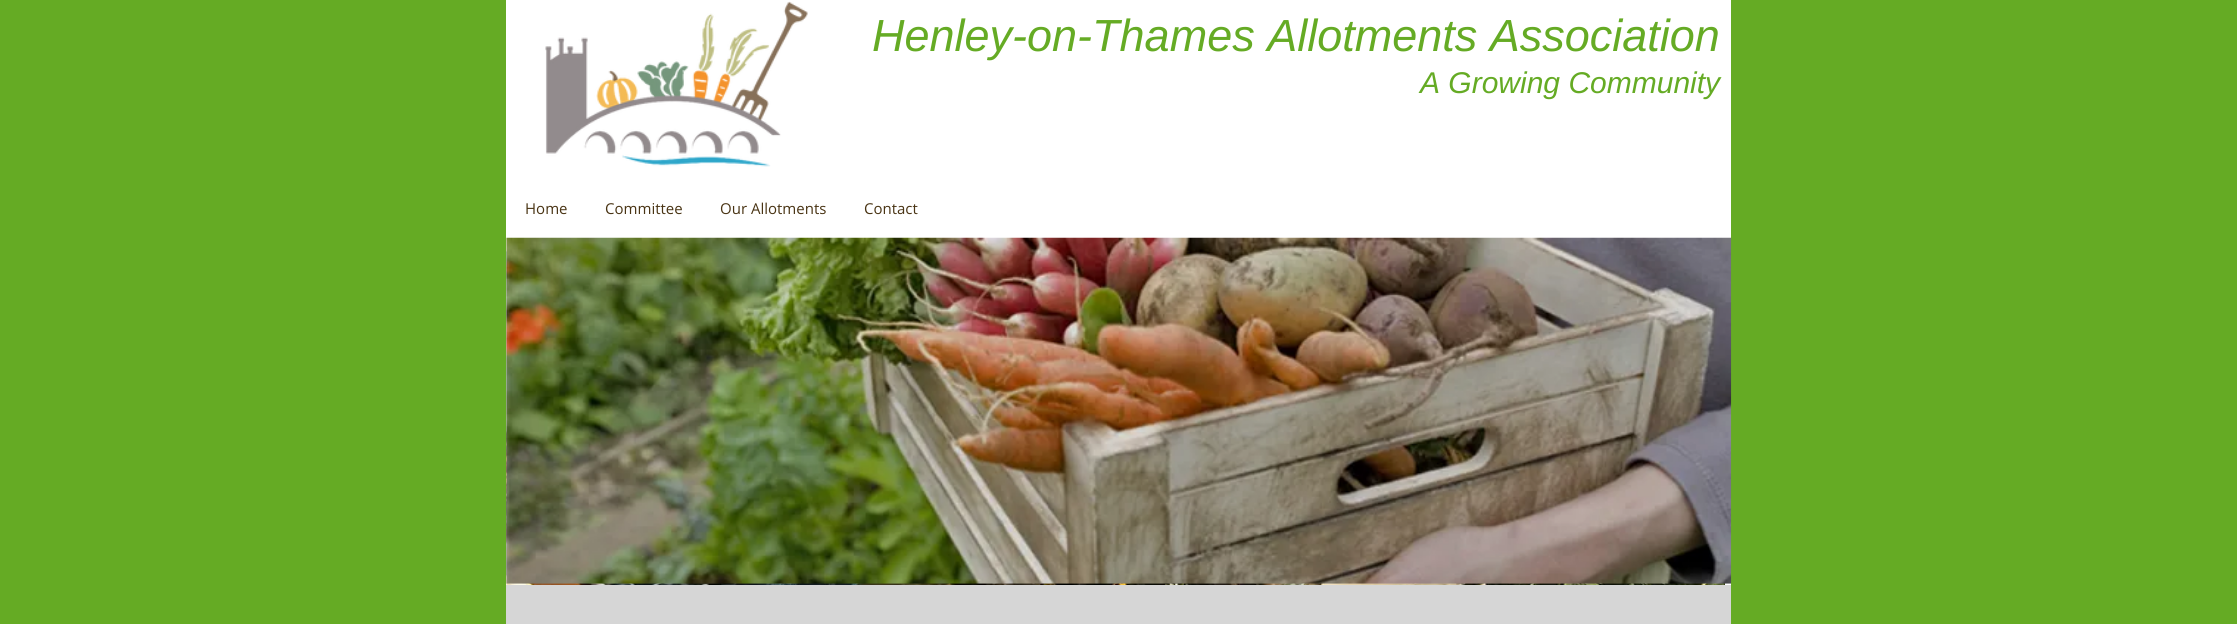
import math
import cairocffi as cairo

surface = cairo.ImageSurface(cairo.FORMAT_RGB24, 2237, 624)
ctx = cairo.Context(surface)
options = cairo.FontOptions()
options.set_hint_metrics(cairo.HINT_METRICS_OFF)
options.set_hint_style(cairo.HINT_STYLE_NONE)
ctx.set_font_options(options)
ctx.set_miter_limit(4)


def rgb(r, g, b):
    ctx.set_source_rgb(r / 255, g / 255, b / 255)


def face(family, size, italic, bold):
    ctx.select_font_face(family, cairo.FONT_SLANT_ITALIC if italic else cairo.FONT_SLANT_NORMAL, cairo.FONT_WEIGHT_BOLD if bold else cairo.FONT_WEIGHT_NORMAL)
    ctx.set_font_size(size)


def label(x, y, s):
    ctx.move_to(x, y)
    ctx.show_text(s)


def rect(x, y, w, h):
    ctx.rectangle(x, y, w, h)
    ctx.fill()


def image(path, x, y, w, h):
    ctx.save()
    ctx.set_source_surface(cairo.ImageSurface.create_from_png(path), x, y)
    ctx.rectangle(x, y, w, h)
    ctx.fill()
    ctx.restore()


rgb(101, 171, 36)
ctx.paint()
rgb(255, 255, 255)
rect(506, 0, 1225, 585)
image('image0.png', 545, 1, 263, 166)
face('Liberation Sans', 45, 1, 0)
rgb(101, 171, 36)
label(872, 51, 'Henley-on-Thames Allotments Association')
face('Liberation Sans', 30, 1, 0)
label(1420, 93, 'A Growing Community')
face('Open Sans', 15, 0, 0)
rgb(73, 52, 20)
label(525, 214, 'Home')
label(605, 214, 'Committee')
label(720, 214, 'Our Allotments')
label(864, 214, 'Contact')
image('image2.png', 506, 251, 1219, 334)
image('image1.png', 506, 237, 1226, 347)
rgb(214, 214, 214)
rect(506, 585, 1225, 39)
surface.write_to_png('render.png')
